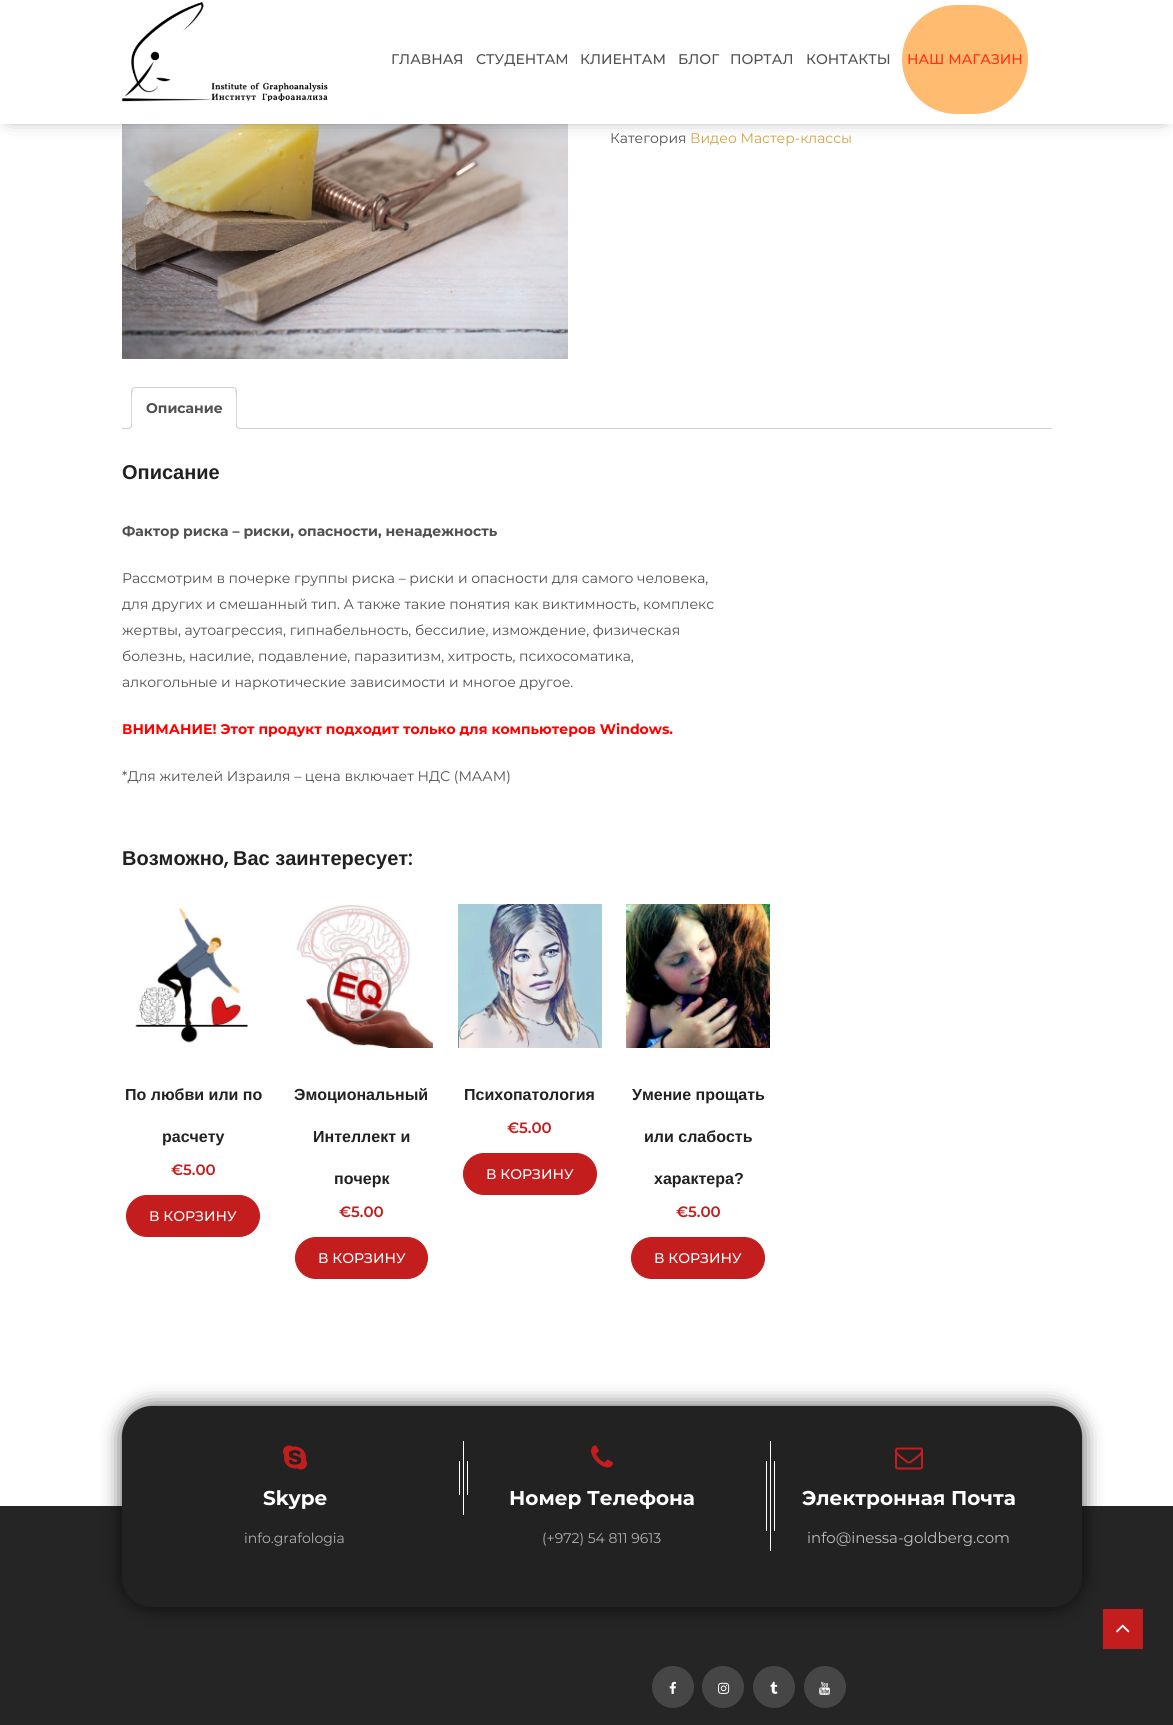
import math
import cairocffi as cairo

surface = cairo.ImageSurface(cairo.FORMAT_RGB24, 1173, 1725)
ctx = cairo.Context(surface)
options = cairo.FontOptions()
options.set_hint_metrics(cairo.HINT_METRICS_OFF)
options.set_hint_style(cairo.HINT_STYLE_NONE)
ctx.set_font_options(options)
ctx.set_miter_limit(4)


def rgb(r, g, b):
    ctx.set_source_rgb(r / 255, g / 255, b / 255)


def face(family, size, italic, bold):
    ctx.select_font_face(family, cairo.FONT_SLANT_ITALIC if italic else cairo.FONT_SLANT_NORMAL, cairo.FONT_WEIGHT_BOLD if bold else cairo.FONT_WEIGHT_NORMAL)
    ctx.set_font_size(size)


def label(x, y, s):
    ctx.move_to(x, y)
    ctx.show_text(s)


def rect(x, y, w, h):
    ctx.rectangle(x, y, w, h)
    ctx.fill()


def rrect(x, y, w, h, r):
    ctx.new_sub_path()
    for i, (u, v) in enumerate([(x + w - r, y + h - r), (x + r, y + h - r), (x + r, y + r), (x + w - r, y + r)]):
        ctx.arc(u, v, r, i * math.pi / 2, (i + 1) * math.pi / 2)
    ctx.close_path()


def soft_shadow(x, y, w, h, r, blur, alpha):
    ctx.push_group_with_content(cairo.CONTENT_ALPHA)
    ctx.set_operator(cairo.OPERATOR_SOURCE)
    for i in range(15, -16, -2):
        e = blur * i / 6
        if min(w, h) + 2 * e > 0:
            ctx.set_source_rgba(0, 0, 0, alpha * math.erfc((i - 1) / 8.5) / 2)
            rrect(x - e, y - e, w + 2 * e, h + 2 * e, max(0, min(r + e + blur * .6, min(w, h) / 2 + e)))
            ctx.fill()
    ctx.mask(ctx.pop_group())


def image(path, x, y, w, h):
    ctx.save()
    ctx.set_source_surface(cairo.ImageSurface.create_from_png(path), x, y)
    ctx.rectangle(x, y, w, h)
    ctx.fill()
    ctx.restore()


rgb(255, 255, 255)
ctx.paint()
image('image1.png', 122, 124, 446, 235)
rgb(0, 0, 0)
soft_shadow(10, 10, 1153, 104, 0, 10, 0.8)
rgb(255, 255, 255)
rect(0, 0, 1173, 124)
image('image0.png', 121, 2, 207, 100)
face('Montserrat Medium', 14, 0, 0)
rgb(80, 80, 80)
label(391, 64, 'ГЛАВНАЯ')
label(476, 64, 'СТУДЕНТАМ')
label(580, 64, 'КЛИЕНТАМ')
label(678, 64, 'БЛОГ')
label(730, 64, 'ПОРТАЛ')
label(806, 64, 'КОНТАКТЫ')
rgb(255, 187, 112)
rrect(902, 5, 126, 109, 54.5)
ctx.fill()
rgb(255, 49, 21)
label(907, 64, 'НАШ МАГАЗИН')
face('Montserrat', 14, 0, 0)
rgb(80, 80, 80)
label(610, 143, 'Категория')
rgb(209, 164, 66)
label(690, 143, 'Видео Мастер-классы')
rgb(211, 206, 210)
rect(122, 428, 930, 1)
rgb(255, 255, 255)
ctx.new_path()
ctx.move_to(135, 387)
ctx.line_to(233, 387)
ctx.curve_to(235, 387, 237, 389, 237, 391)
ctx.line_to(237, 429)
ctx.line_to(131, 429)
ctx.line_to(131, 391)
ctx.curve_to(131, 389, 133, 387, 135, 387)
ctx.close_path()
ctx.fill()
rgb(211, 206, 210)
ctx.new_path()
ctx.move_to(135, 387)
ctx.line_to(132, 388)
ctx.line_to(133, 389)
ctx.line_to(135, 388)
ctx.line_to(233, 388)
ctx.line_to(235, 389)
ctx.line_to(236, 388)
ctx.line_to(233, 387)
ctx.close_path()
ctx.fill()
ctx.new_path()
ctx.move_to(237, 429)
ctx.line_to(237, 391)
ctx.curve_to(237, 390, 236, 389, 236, 388)
ctx.line_to(235, 389)
ctx.curve_to(237, 391, 236, 423, 236, 428)
ctx.close_path()
ctx.fill()
rgb(255, 255, 255)
ctx.new_path()
ctx.move_to(237, 429)
ctx.line_to(236, 428)
ctx.line_to(132, 428)
ctx.line_to(131, 429)
ctx.close_path()
ctx.fill()
rgb(211, 206, 210)
ctx.new_path()
ctx.move_to(131, 429)
ctx.line_to(132, 428)
ctx.curve_to(132, 423, 131, 391, 133, 389)
ctx.line_to(132, 388)
ctx.line_to(131, 391)
ctx.close_path()
ctx.fill()
face('Montserrat', 14, 0, 1)
rgb(80, 80, 80)
label(146, 413, 'Описание')
ctx.save()
ctx.rectangle(122, 387, 930, 42)
ctx.clip()
rgb(255, 255, 255)
ctx.new_path()
ctx.move_to(129, 429)
ctx.line_to(129, 431)
ctx.curve_to(132.5, 431, 134, 429.5, 134, 426)
ctx.line_to(132, 426)
ctx.curve_to(131.5, 427.5, 130.5, 428.5, 129, 429)
ctx.close_path()
ctx.fill()
ctx.restore()
rgb(211, 206, 210)
ctx.set_fill_rule(cairo.FILL_RULE_EVEN_ODD)
ctx.new_path()
ctx.move_to(127, 424)
ctx.line_to(132, 424)
ctx.curve_to(132, 427.5, 130.5, 429, 127, 429)
ctx.close_path()
ctx.move_to(127, 424)
ctx.line_to(131, 424)
ctx.curve_to(131, 427, 130, 428, 127, 428)
ctx.close_path()
ctx.fill()
ctx.save()
ctx.set_fill_rule(cairo.FILL_RULE_WINDING)
ctx.rectangle(122, 387, 930, 42)
ctx.clip()
rgb(255, 255, 255)
ctx.new_path()
ctx.move_to(234, 426)
ctx.curve_to(234, 429.5, 235.5, 431, 239, 431)
ctx.line_to(239, 429)
ctx.curve_to(237.5, 428.5, 236.5, 427.5, 236, 426)
ctx.close_path()
ctx.fill()
ctx.restore()
ctx.new_path()
ctx.move_to(236, 424)
ctx.line_to(241, 424)
ctx.line_to(241, 429)
ctx.curve_to(238.5, 429, 236, 428, 236, 425)
ctx.close_path()
ctx.move_to(237, 424)
ctx.line_to(241, 424)
ctx.line_to(241, 428)
ctx.curve_to(239, 428, 237, 427.5, 237, 425)
ctx.close_path()
ctx.fill()
face('Liberation Sans', 20, 0, 1)
rgb(33, 33, 33)
label(122, 479, 'Описание')
face('Montserrat', 14, 0, 1)
rgb(80, 80, 80)
label(122, 536, 'Фактор риска – риски, опасности, ненадежность')
face('Montserrat', 14, 0, 0)
label(122, 583, 'Рассмотрим в почерке группы риска – риски и опасности для самого человека,')
label(122, 609, 'для других и смешанный тип. А также такие понятия как виктимность, комплекс')
label(122, 635, 'жертвы, аутоагрессия, гипнабельность, бессилие, измождение, физическая')
label(122, 661, 'болезнь, насилие, подавление, паразитизм, хитрость, психосоматика,')
label(122, 687, 'алкогольные и наркотические зависимости и многое другое.')
face('Montserrat', 14, 0, 1)
rgb(255, 0, 0)
label(122, 734, 'ВНИМАНИЕ! Этот продукт подходит только для компьютеров Windows.')
face('Montserrat', 14, 0, 0)
rgb(80, 80, 80)
label(122, 781, '*Для жителей Израиля – цена включает НДС (МААМ)')
face('Liberation Sans', 20, 0, 1)
rgb(33, 33, 33)
label(122, 865, 'Возможно')
face('Poppins', 20, 0, 1)
label(224, 865, ',')
face('Liberation Sans', 20, 0, 1)
label(233, 865, 'Вас заинтересует')
face('Poppins', 20, 0, 1)
label(408, 865, ':')
image('image2.png', 135, 904, 113, 139)
face('Liberation Sans', 16, 0, 1)
label(125, 1100, 'По любви или по')
label(162, 1142, 'расчету')
face('Montserrat SemiBold', 15, 0, 0)
rgb(196, 29, 29)
label(171, 1175, '€5.00')
rrect(126.5, 1195.5, 133, 41, 20.5)
ctx.fill_preserve()
ctx.set_line_width(1)
ctx.stroke()
face('Montserrat Medium', 14, 0, 0)
rgb(255, 255, 255)
label(149, 1221, 'В КОРЗИНУ')
image('image3.png', 295, 904, 138, 144)
face('Liberation Sans', 16, 0, 1)
rgb(33, 33, 33)
label(294, 1100, 'Эмоциональный')
label(313, 1142, 'Интеллект и')
label(334, 1184, 'почерк')
face('Montserrat SemiBold', 15, 0, 0)
rgb(196, 29, 29)
label(339, 1217, '€5.00')
rrect(295.5, 1237.5, 132, 41, 20.5)
ctx.fill_preserve()
ctx.stroke()
face('Montserrat Medium', 14, 0, 0)
rgb(255, 255, 255)
label(318, 1263, 'В КОРЗИНУ')
image('image4.png', 458, 904, 144, 144)
face('Liberation Sans', 16, 0, 1)
rgb(33, 33, 33)
label(464, 1100, 'Психопатология')
face('Montserrat SemiBold', 15, 0, 0)
rgb(196, 29, 29)
label(507, 1133, '€5.00')
rrect(463.5, 1153.5, 133, 41, 20.5)
ctx.fill_preserve()
ctx.stroke()
face('Montserrat Medium', 14, 0, 0)
rgb(255, 255, 255)
label(486, 1179, 'В КОРЗИНУ')
image('image5.png', 626, 904, 144, 144)
face('Liberation Sans', 16, 0, 1)
rgb(33, 33, 33)
label(632, 1100, 'Умение прощать')
label(644, 1142, 'или слабость')
label(654, 1184, 'характера?')
face('Montserrat SemiBold', 15, 0, 0)
rgb(196, 29, 29)
label(676, 1217, '€5.00')
rrect(631.5, 1237.5, 133, 41, 20.5)
ctx.fill_preserve()
ctx.stroke()
face('Montserrat Medium', 14, 0, 0)
rgb(255, 255, 255)
label(654, 1263, 'В КОРЗИНУ')
rgb(37, 37, 37)
rect(0, 1506, 1173, 219)
rgb(196, 29, 29)
rect(1103, 1609, 40, 40)
rgb(0, 0, 0)
soft_shadow(122, 1406, 960, 201, 30, 10, 0.7)
rgb(34, 34, 34)
rrect(122, 1406, 960, 201, 30)
ctx.fill()
image('image6.png', 283, 1445, 24, 25)
face('Montserrat', 20, 0, 1)
rgb(255, 255, 255)
label(263, 1505, 'Skype')
face('Montserrat', 14, 0, 0)
rgb(175, 176, 178)
label(244, 1543, 'info.grafologia')
rgb(255, 255, 255)
rect(463, 1441, 1, 74)
rect(459, 1461, 1, 34)
rect(467, 1461, 1, 34)
image('image7.png', 591, 1445, 22, 23)
face('Montserrat', 20, 0, 1)
label(509, 1505, 'Номер Телефона')
face('Montserrat', 14, 0, 0)
rgb(175, 176, 178)
label(542, 1543, '(+972) 54 811 9613')
rgb(255, 255, 255)
rect(770, 1441, 1, 110)
rect(766, 1461, 1, 70)
rect(774, 1461, 1, 70)
image('image8.png', 895, 1447, 28, 23)
face('Montserrat', 20, 0, 1)
label(802, 1505, 'Электронная Почта')
face('Montserrat', 15, 0, 0)
rgb(189, 189, 189)
label(807, 1543, 'info@inessa-goldberg.com')
rgb(70, 70, 70)
ctx.new_path()
ctx.arc(673, 1687, 21, 0, 2 * math.pi)
ctx.fill()
image('image9.png', 669, 1681, 7, 13)
ctx.arc(723, 1687, 21, 0, 2 * math.pi)
ctx.fill()
image('image10.png', 718, 1682, 12, 12)
ctx.arc(774, 1687, 21, 0, 2 * math.pi)
ctx.fill()
image('image11.png', 770, 1681, 8, 13)
ctx.arc(825, 1687, 21, 0, 2 * math.pi)
ctx.fill()
image('image12.png', 819, 1681, 11, 14)
image('image13.png', 1116, 1624, 14, 9)
surface.write_to_png('render.png')
